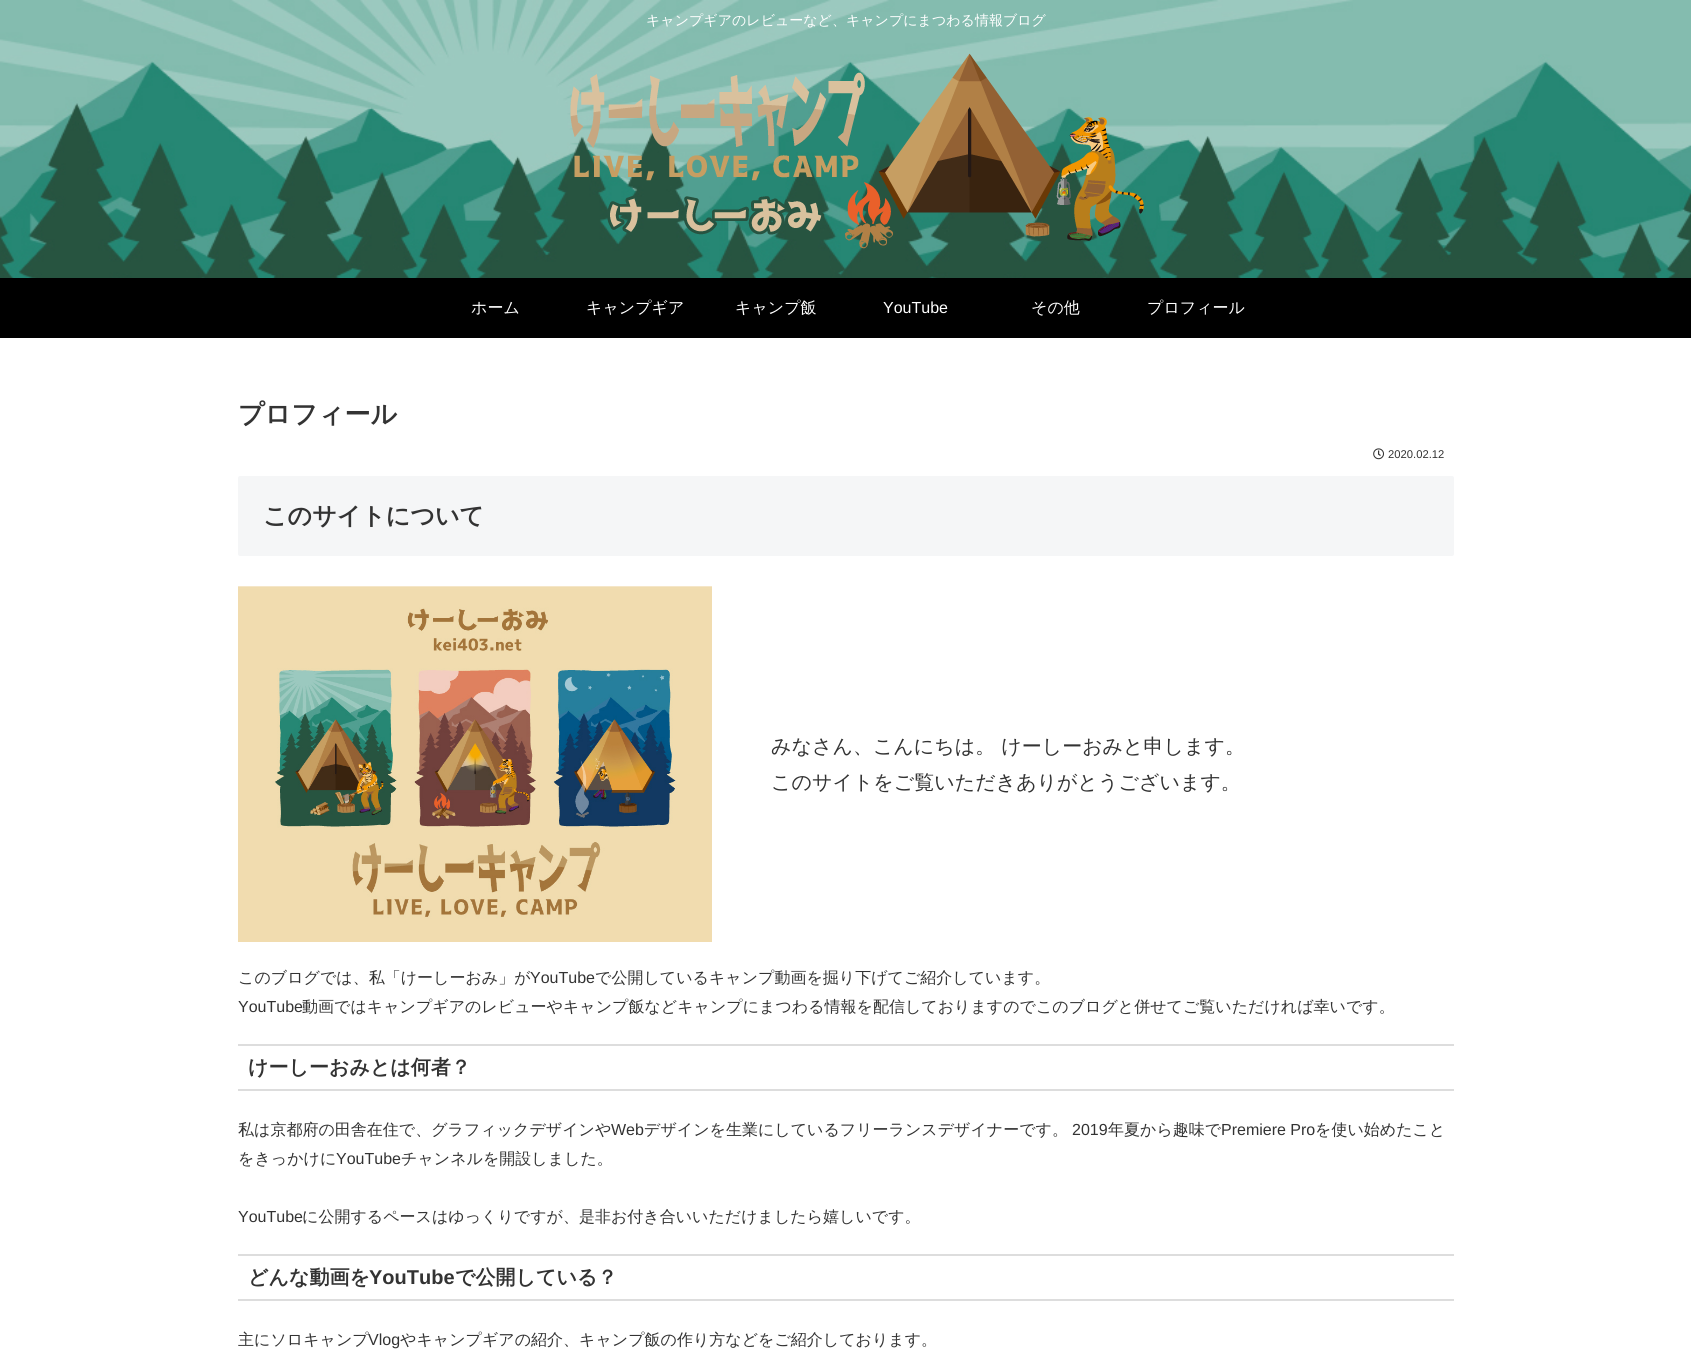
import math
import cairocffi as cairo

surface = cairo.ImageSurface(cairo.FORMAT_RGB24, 1691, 1366)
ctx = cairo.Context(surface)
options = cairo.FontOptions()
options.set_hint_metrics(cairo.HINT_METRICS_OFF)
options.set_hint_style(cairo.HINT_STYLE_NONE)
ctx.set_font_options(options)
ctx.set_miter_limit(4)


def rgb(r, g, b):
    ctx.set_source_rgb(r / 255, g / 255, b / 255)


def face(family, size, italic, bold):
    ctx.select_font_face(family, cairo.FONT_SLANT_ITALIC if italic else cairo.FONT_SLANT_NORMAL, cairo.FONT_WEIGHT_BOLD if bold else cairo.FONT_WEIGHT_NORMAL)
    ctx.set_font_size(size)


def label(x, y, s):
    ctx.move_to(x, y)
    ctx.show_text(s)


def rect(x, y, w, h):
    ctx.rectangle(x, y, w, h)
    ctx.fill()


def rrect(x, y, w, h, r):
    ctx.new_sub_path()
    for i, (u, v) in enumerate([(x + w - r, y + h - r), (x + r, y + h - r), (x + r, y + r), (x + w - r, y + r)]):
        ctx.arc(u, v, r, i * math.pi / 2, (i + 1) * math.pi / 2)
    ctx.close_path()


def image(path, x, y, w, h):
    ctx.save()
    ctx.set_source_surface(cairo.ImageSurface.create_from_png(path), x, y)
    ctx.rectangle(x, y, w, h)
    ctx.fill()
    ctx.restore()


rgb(255, 255, 255)
ctx.paint()
image('image0.png', 0, 0, 1691, 278)
face('WenQuanYi Zen Hei Medium', 14, 0, 0)
rgb(255, 255, 255)
label(646, 25, 'キャンプギアのレビューなど、キャンプにまつわる情報ブログ')
image('image1.png', 570, 53, 574, 196)
rgb(0, 0, 0)
rect(0, 278, 1691, 60)
face('WenQuanYi Zen Hei Medium', 16, 0, 0)
rgb(255, 255, 255)
label(471, 313, 'ホーム')
label(586, 313, 'キャンプギア')
label(735, 313, 'キャンプ飯')
face('Liberation Sans', 16, 0, 0)
label(883, 313, 'YouTube')
face('WenQuanYi Zen Hei Medium', 16, 0, 0)
label(1031, 313, 'その他')
label(1147, 313, 'プロフィール')
face('WenQuanYi Zen Hei', 26, 0, 1)
rgb(51, 51, 51)
label(238, 423, 'プロフィール')
image('image2.png', 1373, 448, 11, 12)
face('Liberation Sans', 11.25, 0, 0)
label(1388, 458, '2020.02.12')
rgb(245, 246, 247)
rrect(238, 476, 1216, 80, 2)
ctx.fill()
face('WenQuanYi Zen Hei', 24, 0, 1)
rgb(51, 51, 51)
label(263, 524, 'このサイトについて')
image('image3.png', 238, 586, 474, 356)
face('WenQuanYi Zen Hei Medium', 20, 0, 0)
label(771, 753, 'みなさん、こんにちは。 けーしーおみと申します。')
label(771, 789, 'このサイトをご覧いただきありがとうございます。')
face('WenQuanYi Zen Hei Medium', 16, 0, 0)
label(238, 983, 'このブログでは、私「けーしーおみ」が')
face('Liberation Sans', 16, 0, 0)
label(530, 983, 'YouTube')
face('WenQuanYi Zen Hei Medium', 16, 0, 0)
label(595, 983, 'で公開しているキャンプ動画を掘り下げてご紹介しています。')
face('Liberation Sans', 16, 0, 0)
label(238, 1012, 'YouTube')
face('WenQuanYi Zen Hei Medium', 16, 0, 0)
label(302, 1012, '動画ではキャンプギアのレビューやキャンプ飯などキャンプにまつわる情報を配信しておりますのでこのブログと併せてご覧いただければ幸いです。')
rgb(221, 221, 221)
rect(238, 1044, 1216, 2)
rect(238, 1089, 1216, 2)
face('WenQuanYi Zen Hei', 20, 0, 1)
rgb(51, 51, 51)
label(248, 1074, 'けーしーおみとは何者？')
face('WenQuanYi Zen Hei Medium', 16, 0, 0)
label(238, 1135, '私は京都府の田舎在住で、グラフィックデザインや')
face('Liberation Sans', 16, 0, 0)
label(611, 1135, 'Web')
face('WenQuanYi Zen Hei Medium', 16, 0, 0)
label(644, 1135, 'デザインを生業にしているフリーランスデザイナーです。')
face('Liberation Sans', 16, 0, 0)
label(1072, 1135, '2019')
face('WenQuanYi Zen Hei Medium', 16, 0, 0)
label(1108, 1135, '年夏から趣味で')
face('Liberation Sans', 16, 0, 0)
label(1221, 1135, 'Premiere Pro')
face('WenQuanYi Zen Hei Medium', 16, 0, 0)
label(1315, 1135, 'を使い始めたこと')
label(238, 1164, 'をきっかけに')
face('Liberation Sans', 16, 0, 0)
label(336, 1164, 'YouTube')
face('WenQuanYi Zen Hei Medium', 16, 0, 0)
label(401, 1164, 'チャンネルを開設しました。')
face('Liberation Sans', 16, 0, 0)
label(238, 1222, 'YouTube')
face('WenQuanYi Zen Hei Medium', 16, 0, 0)
label(302, 1222, 'に公開するペースはゆっくりですが、是非お付き合いいただけましたら嬉しいです。')
rgb(221, 221, 221)
rect(238, 1254, 1216, 2)
rect(238, 1299, 1216, 2)
face('WenQuanYi Zen Hei', 20, 0, 1)
rgb(51, 51, 51)
label(248, 1284, 'どんな動画を')
face('Liberation Sans', 20, 0, 1)
label(369, 1284, 'YouTube')
face('WenQuanYi Zen Hei', 20, 0, 1)
label(455, 1284, 'で公開している？')
face('WenQuanYi Zen Hei Medium', 16, 0, 0)
label(238, 1345, '主にソロキャンプ')
face('Liberation Sans', 16, 0, 0)
label(368, 1345, 'Vlog')
face('WenQuanYi Zen Hei Medium', 16, 0, 0)
label(400, 1345, 'やキャンプギアの紹介、キャンプ飯の作り方などをご紹介しております。')
surface.write_to_png('render.png')
